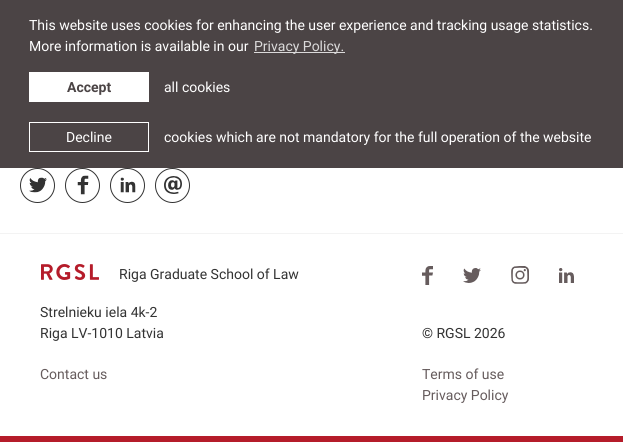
import math
import cairocffi as cairo

surface = cairo.ImageSurface(cairo.FORMAT_RGB24, 623, 442)
ctx = cairo.Context(surface)
options = cairo.FontOptions()
options.set_hint_metrics(cairo.HINT_METRICS_OFF)
options.set_hint_style(cairo.HINT_STYLE_NONE)
ctx.set_font_options(options)
ctx.set_miter_limit(4)


def rgb(r, g, b):
    ctx.set_source_rgb(r / 255, g / 255, b / 255)


def face(family, size, italic, bold):
    ctx.select_font_face(family, cairo.FONT_SLANT_ITALIC if italic else cairo.FONT_SLANT_NORMAL, cairo.FONT_WEIGHT_BOLD if bold else cairo.FONT_WEIGHT_NORMAL)
    ctx.set_font_size(size)


def label(x, y, s):
    ctx.move_to(x, y)
    ctx.show_text(s)


def rect(x, y, w, h):
    ctx.rectangle(x, y, w, h)
    ctx.fill()


def image(path, x, y, w, h):
    ctx.save()
    ctx.set_source_surface(cairo.ImageSurface.create_from_png(path), x, y)
    ctx.rectangle(x, y, w, h)
    ctx.fill()
    ctx.restore()


rgb(255, 255, 255)
ctx.paint()
rgb(75, 68, 69)
rect(0, 0, 623, 168)
face('Roboto', 14, 0, 0)
rgb(255, 255, 255)
label(29, 30, 'This website uses cookies for enhancing the user experience and tracking usage statistics.')
label(29, 51, 'More information is available in our')
rgb(219, 218, 218)
rect(254, 52, 91, 1)
label(254, 51, 'Privacy Policy.')
rgb(255, 255, 255)
rect(29, 72, 120, 30)
face('Roboto', 14, 0, 1)
rgb(75, 68, 69)
label(67, 92, 'Accept')
face('Roboto', 14, 0, 0)
rgb(255, 255, 255)
label(164, 92, 'all cookies')
ctx.rectangle(29.5, 122.5, 119, 29)
ctx.set_line_width(1)
ctx.stroke()
label(66, 142, 'Decline')
label(164, 142, 'cookies which are not mandatory for the full operation of the website')
ctx.new_path()
ctx.arc(37.5, 185.5, 17, 0, 2 * math.pi)
rgb(51, 51, 51)
ctx.stroke()
image('image0.png', 29, 177, 18, 16)
ctx.arc(82.5, 185.5, 17, 0, 2 * math.pi)
ctx.stroke()
image('image1.png', 77, 175, 12, 20)
ctx.arc(127.5, 185.5, 17, 0, 2 * math.pi)
ctx.stroke()
image('image2.png', 120, 177, 16, 16)
ctx.arc(172.5, 185.5, 17, 0, 2 * math.pi)
ctx.stroke()
image('image3.png', 164, 176, 18, 18)
rgb(243, 243, 243)
rect(0, 233, 623, 1)
rgb(181, 28, 42)
rect(0, 436, 623, 6)
image('image4.png', 41, 264, 58, 16)
rgb(51, 51, 51)
label(119, 279, 'Riga Graduate School of Law')
label(40, 317, 'Strelnieku iela 4k-2')
label(40, 338, 'Riga LV-1010 Latvia')
image('image5.png', 422, 266, 11, 19)
image('image6.png', 463, 268, 18, 15)
image('image7.png', 511, 266, 18, 18)
image('image8.png', 559, 268, 15, 15)
label(422, 338, '© RGSL 2026')
rgb(102, 92, 93)
label(40, 379, 'Contact us')
label(422, 379, 'Terms of use')
label(422, 400, 'Privacy Policy')
surface.write_to_png('render.png')
